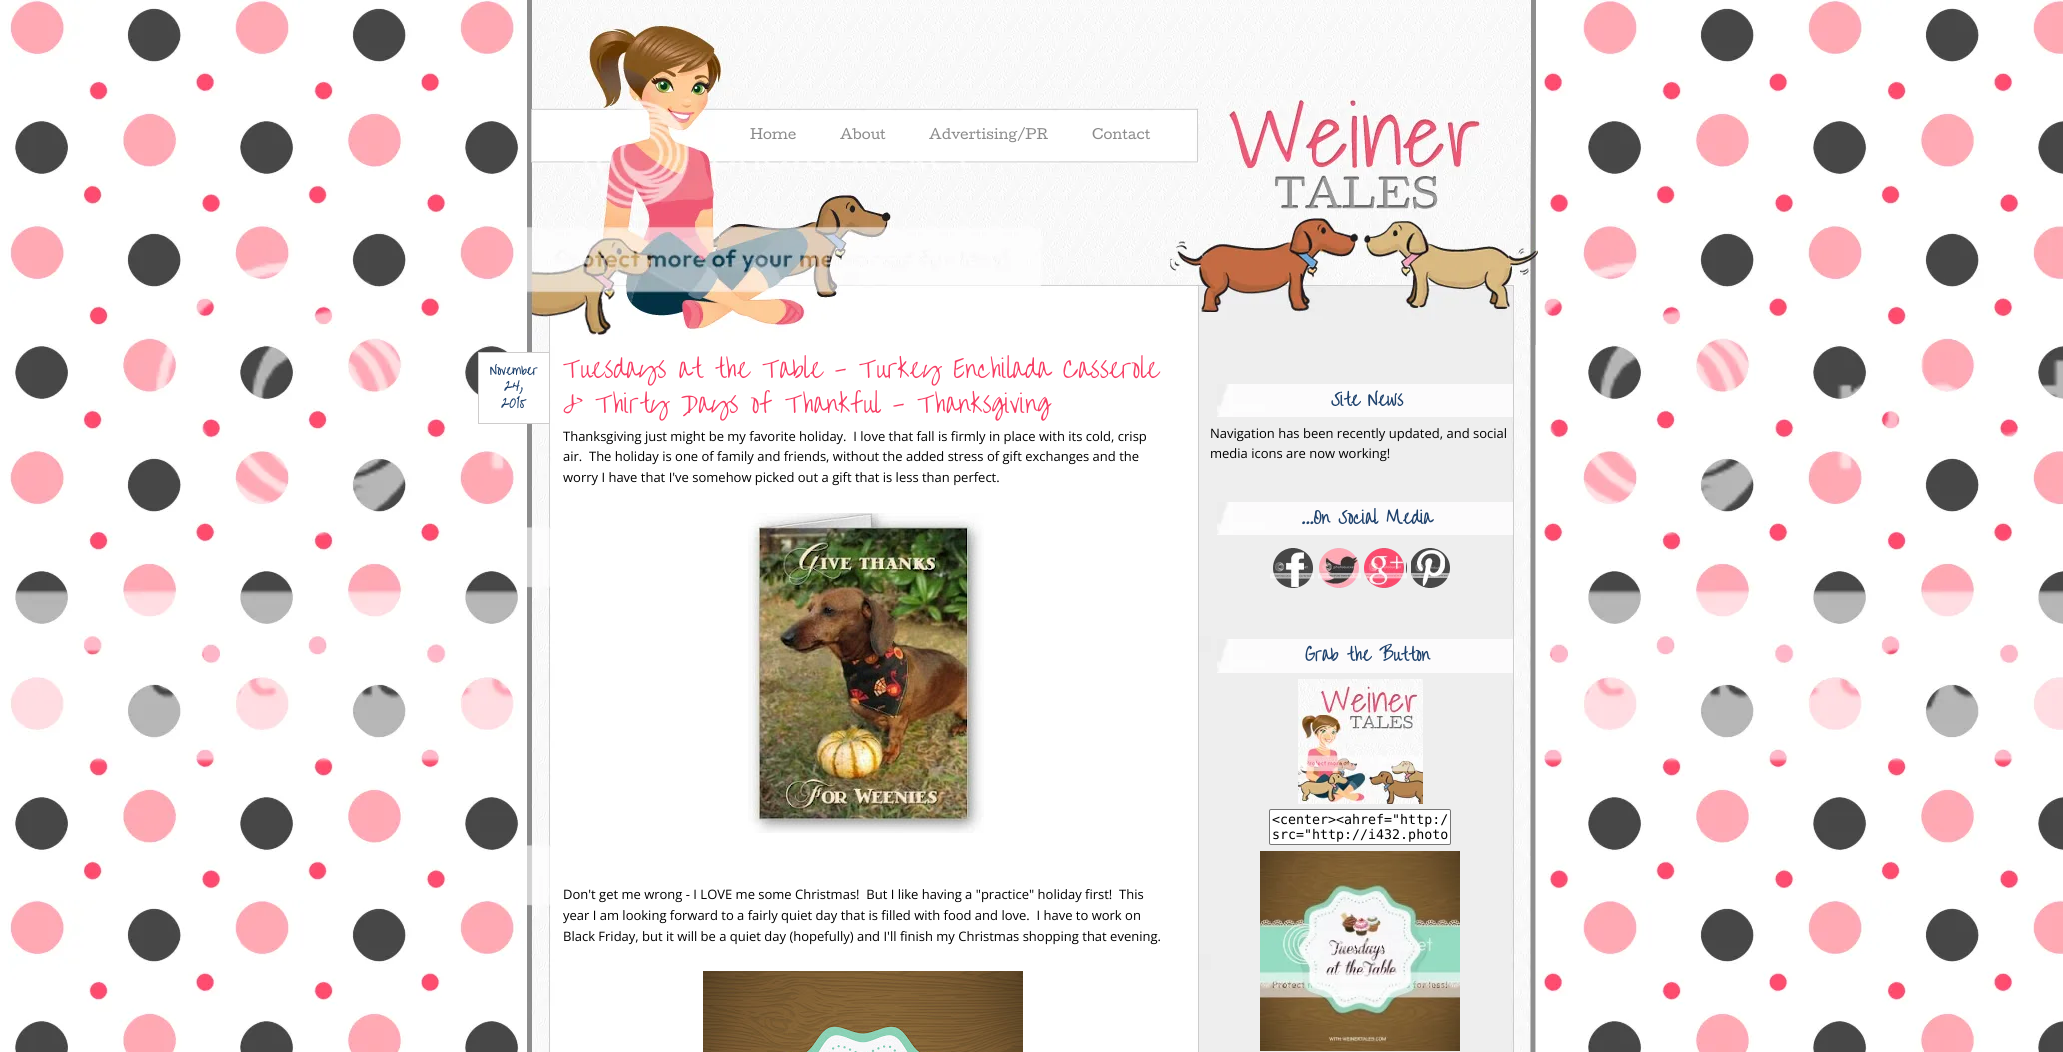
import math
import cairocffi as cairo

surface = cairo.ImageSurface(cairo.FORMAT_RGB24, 2063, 1052)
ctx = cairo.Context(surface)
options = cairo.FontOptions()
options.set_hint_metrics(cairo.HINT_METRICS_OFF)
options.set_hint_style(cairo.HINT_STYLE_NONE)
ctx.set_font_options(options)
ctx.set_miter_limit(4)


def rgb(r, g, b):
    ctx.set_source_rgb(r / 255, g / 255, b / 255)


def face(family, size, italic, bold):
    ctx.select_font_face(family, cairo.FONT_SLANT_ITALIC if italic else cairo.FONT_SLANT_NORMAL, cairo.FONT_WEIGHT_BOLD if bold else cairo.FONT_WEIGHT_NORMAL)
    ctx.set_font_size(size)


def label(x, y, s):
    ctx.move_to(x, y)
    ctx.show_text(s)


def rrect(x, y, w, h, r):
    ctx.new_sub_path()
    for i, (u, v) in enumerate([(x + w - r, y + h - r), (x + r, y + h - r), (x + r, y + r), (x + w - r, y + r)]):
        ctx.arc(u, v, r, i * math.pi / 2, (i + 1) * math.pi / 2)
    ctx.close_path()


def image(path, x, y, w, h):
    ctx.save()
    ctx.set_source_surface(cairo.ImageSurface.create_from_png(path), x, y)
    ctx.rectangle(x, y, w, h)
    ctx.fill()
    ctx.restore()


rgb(255, 255, 255)
ctx.paint()
image('image0.png', 8, 0, 2055, 1052)
image('image1.png', 527, 122, 1009, 930)
image('image2.png', 527, 0, 1011, 345)
face('Cutive', 13, 0, 0)
rgb(139, 139, 139)
label(750, 139, 'Home')
label(840, 139, 'About')
label(929, 139, 'Advertising/PR')
label(1092, 139, 'Contact')
image('image3.png', 1217, 384, 296, 33)
face('Over the Rainbow', 17, 0, 1)
rgb(31, 66, 109)
label(1331, 406, 'Site News')
face('Open Sans', 13, 0, 0)
rgb(0, 0, 0)
label(1210, 438, 'Navigation has been recently updated, and social')
label(1210, 458, 'media icons are now working!')
image('image3.png', 1217, 502, 296, 33)
face('Over the Rainbow', 17, 0, 1)
rgb(31, 66, 109)
label(1301, 524, '...On Social Media')
image('image4.png', 1270, 548, 44, 40)
image('image5.png', 1318, 548, 43, 40)
image('image6.png', 1364, 548, 43, 40)
image('image7.png', 1411, 548, 39, 40)
image('image8.png', 1217, 639, 296, 34)
label(1305, 661, 'Grab the Button')
image('image9.png', 1298, 679, 125, 125)
rgb(255, 255, 255)
rrect(1269.5, 809.5, 181, 35, 1.5)
ctx.fill_preserve()
rgb(118, 118, 118)
ctx.set_line_width(1)
ctx.stroke()
face('DejaVu Sans Mono', 13.3, 0, 0)
rgb(0, 0, 0)
label(1272, 824, '<center><ahref="http:/')
label(1272, 839, 'src="http://i432.photo')
image('image10.png', 1260, 851, 200, 200)
rgb(255, 255, 255)
ctx.rectangle(478.5, 352.5, 71, 71)
ctx.fill_preserve()
rgb(206, 204, 204)
ctx.stroke()
face('Over the Rainbow', 12, 0, 1)
rgb(31, 66, 109)
label(490, 375, 'November')
label(504, 391, '24,')
label(501, 408, '2015')
face('Over the Rainbow', 25, 0, 0)
rgb(246, 62, 100)
label(563, 378, 'Tuesdays at the Table - Turkey Enchilada Casserole')
label(563, 413, '& Thirty Days of Thankful - Thanksgiving')
face('Open Sans', 13, 0, 0)
rgb(0, 0, 0)
label(563, 441, 'Thanksgiving just might be my favorite holiday.  I love that fall is firmly in place with its cold, crisp')
label(563, 461, 'air.  The holiday is one of family and friends, without the added stress of gift exchanges and the')
label(563, 482, 'worry I have that I\'ve somehow picked out a gift that is less than perfect.')
image('image11.png', 748, 513, 236, 320)
label(563, 899, 'Don\'t get me wrong - I LOVE me some Christmas!  But I like having a "practice" holiday first!  This')
label(563, 920, 'year I am looking forward to a fairly quiet day that is filled with food and love.  I have to work on')
label(563, 941, 'Black Friday, but it will be a quiet day (hopefully) and I\'ll finish my Christmas shopping that evening.')
image('image12.png', 703, 971, 320, 81)
surface.write_to_png('render.png')
